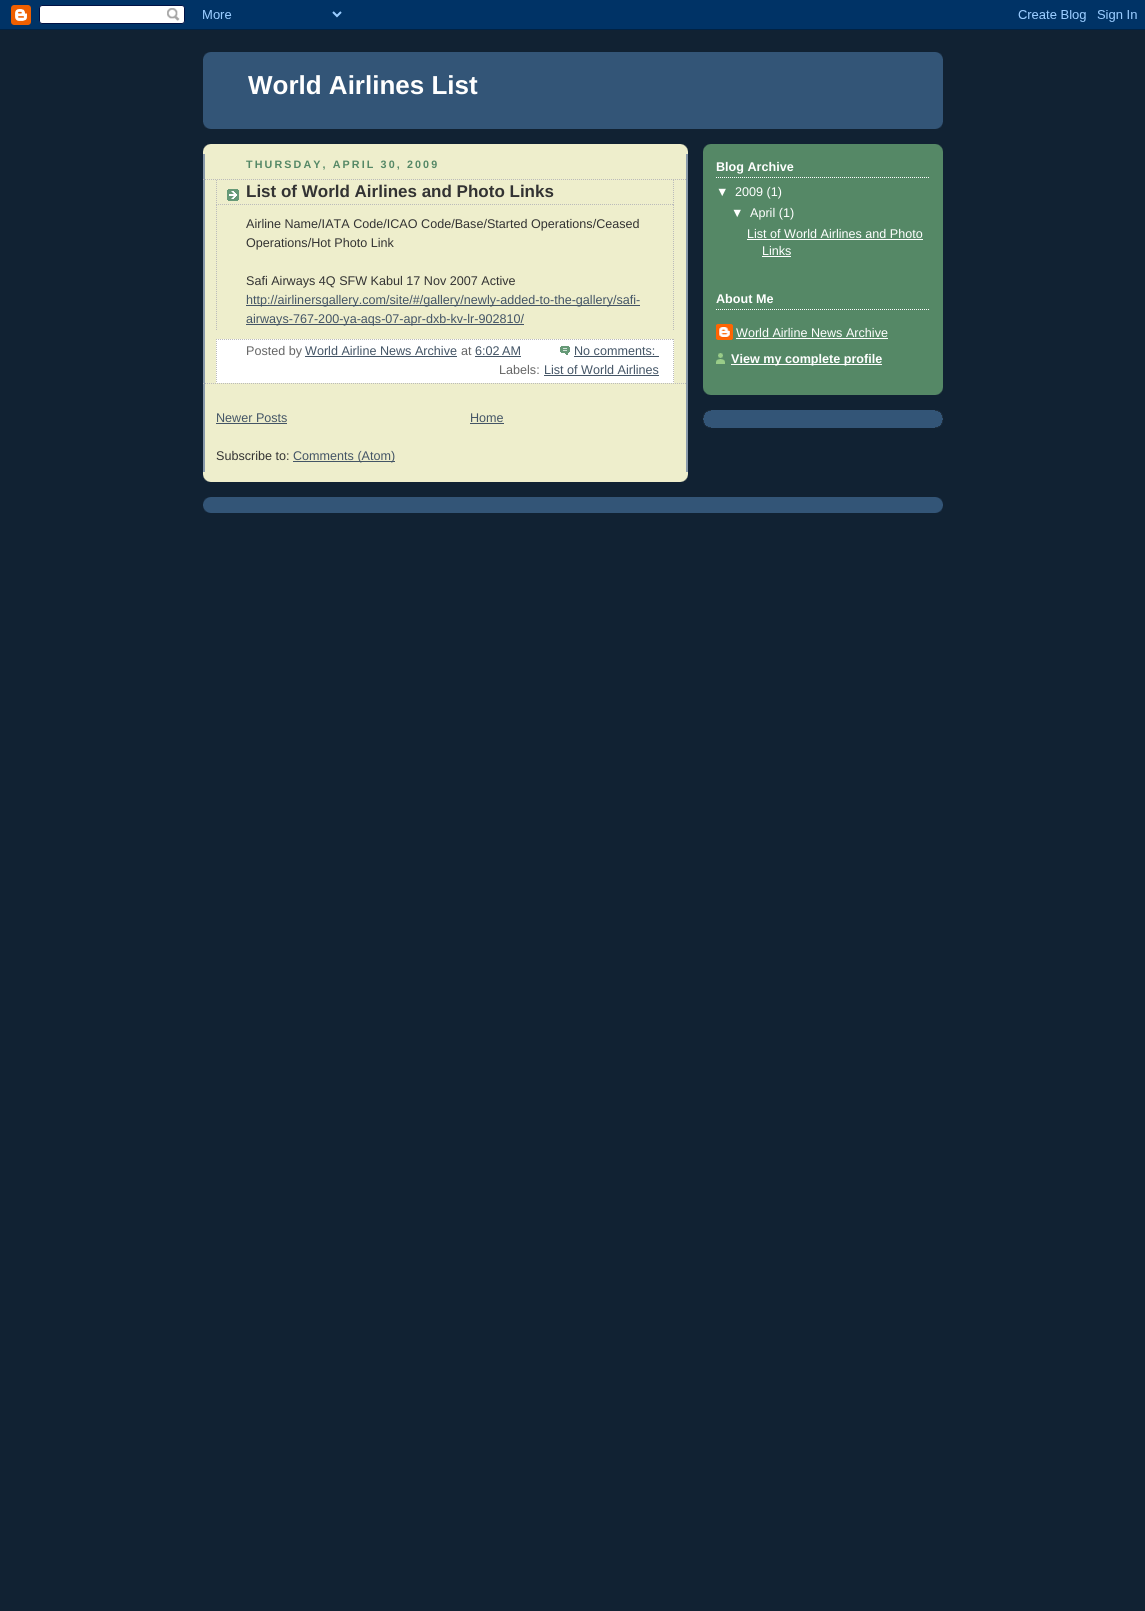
import math
import cairocffi as cairo

surface = cairo.ImageSurface(cairo.FORMAT_RGB24, 1145, 1611)
ctx = cairo.Context(surface)
options = cairo.FontOptions()
options.set_hint_metrics(cairo.HINT_METRICS_OFF)
options.set_hint_style(cairo.HINT_STYLE_NONE)
ctx.set_font_options(options)
ctx.set_miter_limit(4)


def rgb(r, g, b):
    ctx.set_source_rgb(r / 255, g / 255, b / 255)


def face(family, size, italic, bold):
    ctx.select_font_face(family, cairo.FONT_SLANT_ITALIC if italic else cairo.FONT_SLANT_NORMAL, cairo.FONT_WEIGHT_BOLD if bold else cairo.FONT_WEIGHT_NORMAL)
    ctx.set_font_size(size)


def label(x, y, s):
    ctx.move_to(x, y)
    ctx.show_text(s)


def tracked(x, y, s, letter, word):
    ctx.move_to(x, y)
    for ch in s:
        ctx.show_text(ch)
        ctx.rel_move_to(letter + word * (ch == ' '), 0)


def rect(x, y, w, h):
    ctx.rectangle(x, y, w, h)
    ctx.fill()


def image(path, x, y, w, h):
    ctx.save()
    ctx.set_source_surface(cairo.ImageSurface.create_from_png(path), x, y)
    ctx.rectangle(x, y, w, h)
    ctx.fill()
    ctx.restore()


rgb(17, 34, 51)
ctx.paint()
image('image0.png', 0, 0, 1145, 30)
rgb(51, 85, 119)
rect(203, 52, 740, 77)
image('image1.png', 203, 52, 740, 7)
image('image2.png', 203, 122, 740, 7)
face('Liberation Sans', 26, 0, 1)
rgb(255, 255, 255)
label(248, 94, 'World Airlines List')
rgb(238, 238, 204)
rect(203, 144, 485, 338)
image('image3.png', 203, 474, 485, 8)
image('image4.png', 203, 144, 485, 8)
image('image5.png', 203, 154, 485, 318)
face('Liberation Sans', 10.75, 0, 1)
rgb(85, 136, 102)
tracked(246, 168, 'THURSDAY, APRIL 30, 2009', 2.1, 0)
ctx.new_path()
ctx.move_to(203, 179.5)
ctx.line_to(687, 179.5)
rgb(187, 187, 187)
ctx.set_line_width(1)
ctx.set_dash([1, 1])
ctx.stroke()
ctx.new_path()
ctx.move_to(203, 383.5)
ctx.line_to(687, 383.5)
ctx.stroke()
image('image6.png', 227, 189, 12, 12)
ctx.new_path()
ctx.move_to(673.5, 180)
ctx.line_to(673.5, 205)
ctx.stroke()
ctx.new_path()
ctx.move_to(216, 204.5)
ctx.line_to(674, 204.5)
ctx.stroke()
ctx.new_path()
ctx.move_to(216.5, 180)
ctx.line_to(216.5, 205)
ctx.stroke()
face('Liberation Sans', 17, 0, 1)
rgb(51, 51, 51)
label(246, 197, 'List of World Airlines and Photo Links')
ctx.new_path()
ctx.move_to(673.5, 205)
ctx.line_to(673.5, 330)
rgb(187, 187, 187)
ctx.stroke()
ctx.new_path()
ctx.move_to(216.5, 205)
ctx.line_to(216.5, 330)
ctx.stroke()
face('Liberation Sans', 12.6, 0, 0)
rgb(51, 51, 51)
label(246, 228, 'Airline Name/IATA Code/ICAO Code/Base/Started Operations/Ceased')
label(246, 247, 'Operations/Hot Photo Link')
label(246, 285, 'Safi Airways 4Q SFW Kabul 17 Nov 2007 Active')
rgb(68, 85, 102)
rect(246, 305, 394, 1)
label(246, 304, 'http://airlinersgallery.com/site/#/gallery/newly-added-to-the-gallery/safi-')
rect(246, 324, 278, 1)
label(246, 323, 'airways-767-200-ya-aqs-07-apr-dxb-kv-lr-902810/')
rgb(255, 255, 255)
rect(216, 339, 458, 44)
ctx.new_path()
ctx.move_to(216, 339.5)
ctx.line_to(674, 339.5)
rgb(187, 187, 187)
ctx.stroke()
ctx.new_path()
ctx.move_to(673.5, 339)
ctx.line_to(673.5, 383)
ctx.stroke()
ctx.new_path()
ctx.move_to(216.5, 339)
ctx.line_to(216.5, 383)
ctx.stroke()
rgb(102, 102, 102)
label(246, 355, 'Posted by')
rgb(68, 85, 102)
label(305, 355, 'World Airline News Archive')
rect(305, 356, 152, 1)
rgb(102, 102, 102)
label(461, 355, 'at')
rgb(68, 85, 102)
label(475, 355, '6:02 AM')
rect(475, 356, 46, 1)
image('image7.png', 560, 346, 10, 9)
label(574, 355, 'No comments:')
rect(574, 356, 85, 1)
rgb(102, 102, 102)
label(499, 374, 'Labels:')
rgb(68, 85, 102)
label(544, 374, 'List of World Airlines')
rect(544, 375, 115, 1)
label(216, 422, 'Newer Posts')
rect(216, 423, 71, 1)
label(470, 422, 'Home')
rect(470, 423, 34, 1)
rgb(51, 51, 51)
label(216, 460, 'Subscribe to:')
rgb(68, 85, 102)
rect(293, 461, 102, 1)
label(293, 460, 'Comments (Atom)')
rgb(85, 136, 102)
rect(703, 144, 240, 251)
image('image8.png', 703, 387, 240, 8)
image('image9.png', 703, 144, 240, 8)
ctx.new_path()
ctx.move_to(716, 177.5)
ctx.line_to(930, 177.5)
rgb(255, 255, 255)
ctx.stroke()
face('Liberation Sans', 12.6, 0, 1)
label(716, 171, 'Blog Archive')
face('Liberation Sans', 12.6, 0, 0)
label(716, 196, '▼')
label(735, 196, '2009 (1)')
label(731, 217, '▼')
label(750, 217, 'April (1)')
label(747, 238, 'List of World Airlines and Photo')
rect(747, 239, 176, 1)
label(762, 255, 'Links')
rect(762, 256, 29, 1)
ctx.new_path()
ctx.move_to(716, 309.5)
ctx.line_to(930, 309.5)
ctx.stroke()
face('Liberation Sans', 12.6, 0, 1)
label(716, 303, 'About Me')
image('image10.png', 716, 324, 17, 16)
face('Liberation Sans', 12.6, 0, 0)
label(736, 337, 'World Airline News Archive')
rect(736, 338, 152, 1)
image('image11.png', 716, 353, 9, 11)
rect(731, 364, 151, 1)
face('Liberation Sans', 12.6, 0, 1)
label(731, 363, 'View my complete profile')
rgb(51, 85, 119)
rect(703, 410, 240, 18)
image('image12.png', 703, 410, 240, 8)
image('image13.png', 703, 420, 240, 8)
rect(203, 497, 740, 16)
image('image1.png', 203, 497, 740, 7)
image('image2.png', 203, 506, 740, 7)
surface.write_to_png('render.png')
